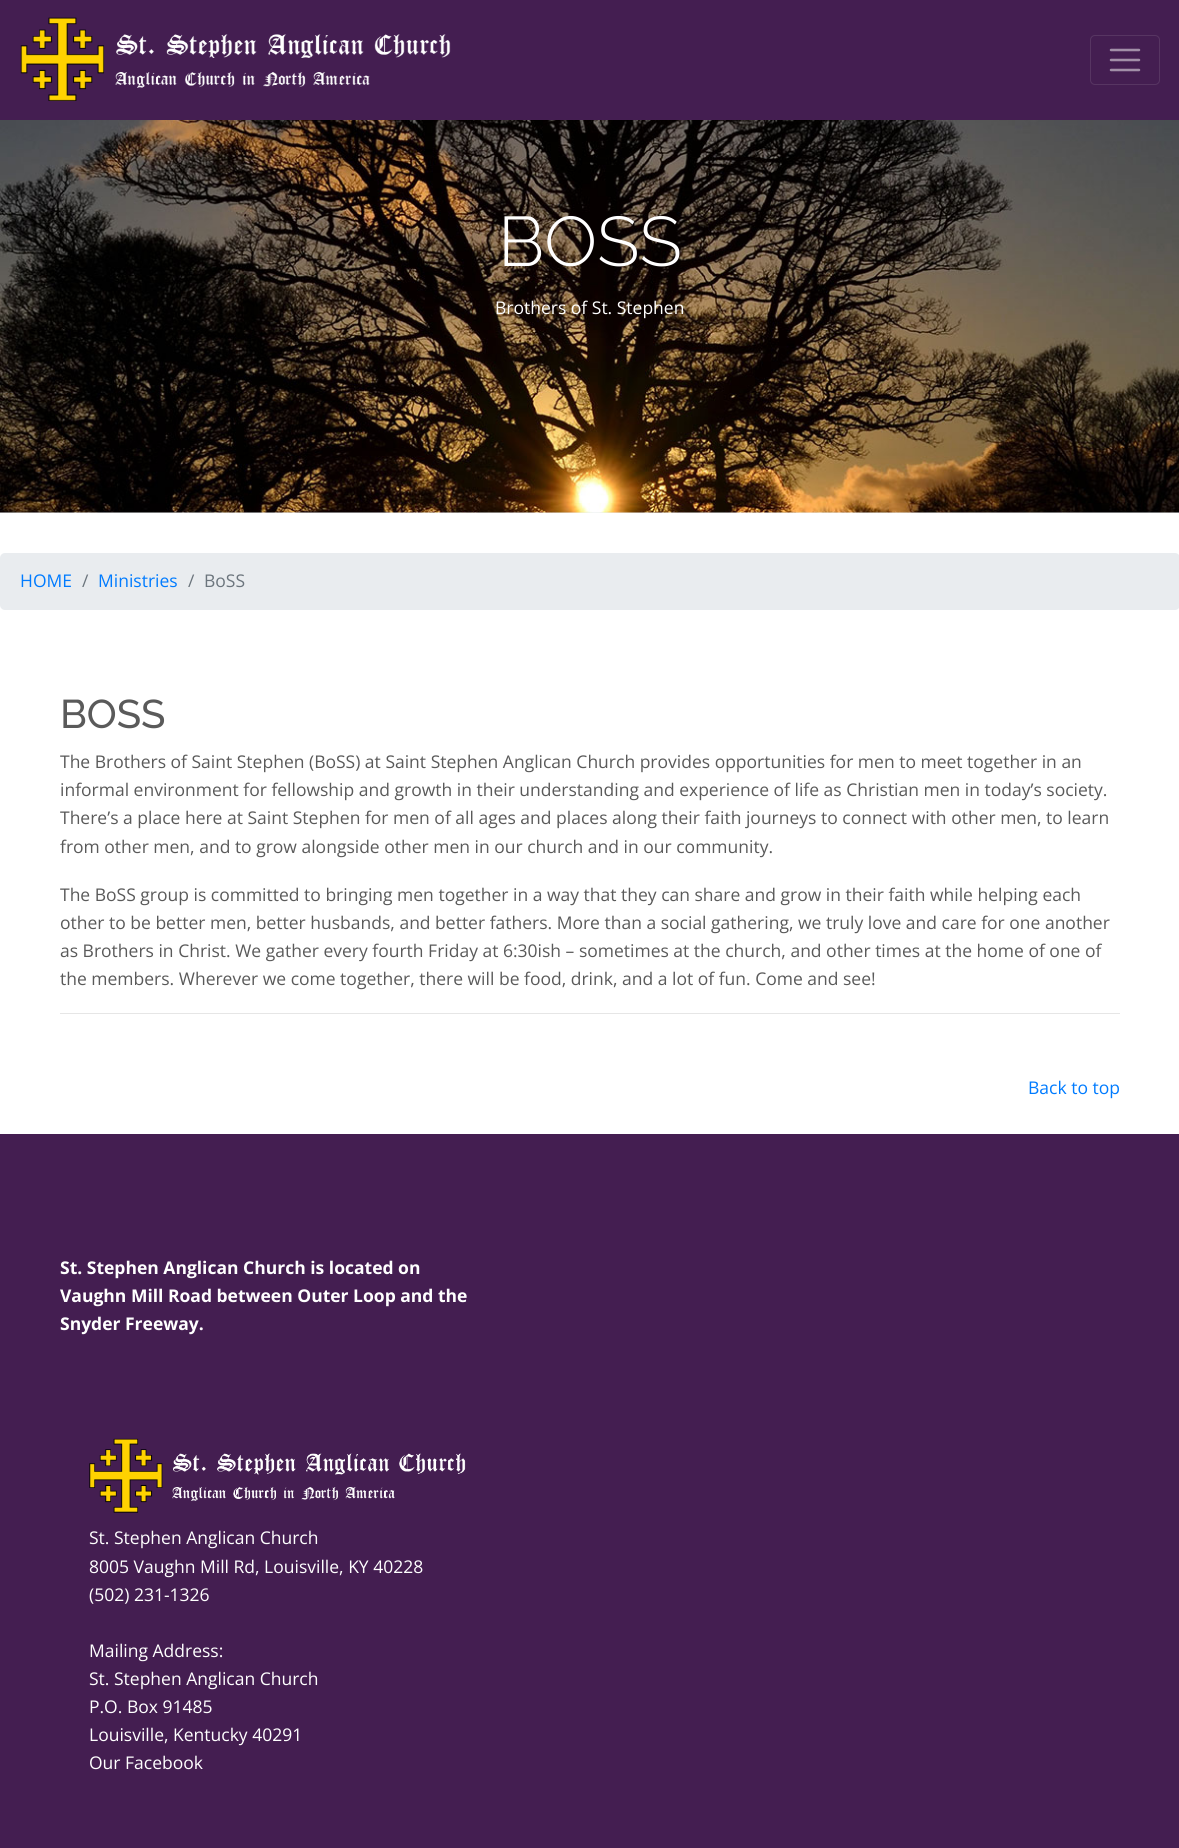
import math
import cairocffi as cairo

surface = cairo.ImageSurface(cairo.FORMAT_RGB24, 1179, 1848)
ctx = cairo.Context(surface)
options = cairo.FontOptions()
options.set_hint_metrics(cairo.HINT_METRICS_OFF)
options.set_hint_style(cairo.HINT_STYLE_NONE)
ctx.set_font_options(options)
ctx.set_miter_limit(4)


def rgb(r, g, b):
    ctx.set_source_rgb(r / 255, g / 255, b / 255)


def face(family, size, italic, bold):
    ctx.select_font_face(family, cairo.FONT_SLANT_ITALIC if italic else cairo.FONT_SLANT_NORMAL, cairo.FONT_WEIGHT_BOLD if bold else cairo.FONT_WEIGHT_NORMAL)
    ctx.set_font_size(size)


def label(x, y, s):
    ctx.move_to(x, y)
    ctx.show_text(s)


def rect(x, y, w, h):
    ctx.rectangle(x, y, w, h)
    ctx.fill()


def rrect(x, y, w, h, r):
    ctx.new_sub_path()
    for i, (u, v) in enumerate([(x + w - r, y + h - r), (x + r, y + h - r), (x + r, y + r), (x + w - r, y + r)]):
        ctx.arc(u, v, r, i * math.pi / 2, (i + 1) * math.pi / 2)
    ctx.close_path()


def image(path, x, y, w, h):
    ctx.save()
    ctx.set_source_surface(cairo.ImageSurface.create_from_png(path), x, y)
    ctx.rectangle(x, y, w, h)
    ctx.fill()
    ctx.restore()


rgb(255, 255, 255)
ctx.paint()
rgb(68, 30, 81)
rect(0, 0, 1179, 120)
image('image0.png', 20, 17, 431, 84)
rrect(1090.5, 35.5, 69, 49, 4.5)
rgb(87, 53, 98)
ctx.set_line_width(1)
ctx.stroke()
ctx.new_path()
ctx.move_to(1111, 50)
ctx.line_to(1139, 50)
ctx.move_to(1111, 60)
ctx.line_to(1139, 60)
ctx.move_to(1111, 70)
ctx.line_to(1139, 70)
rgb(162, 143, 168)
ctx.set_line_width(2.5)
ctx.set_line_cap(cairo.LINE_CAP_ROUND)
ctx.stroke()
rgb(233, 236, 239)
rect(0, 512, 1179, 1)
image('image1.png', 0, 120, 1179, 393)
face('Raleway Light', 70, 0, 0)
rgb(255, 255, 255)
label(498, 266, 'BOSS')
face('Open Sans', 17.5, 0, 0)
label(495, 314, 'Brothers of St. Stephen')
rgb(233, 236, 239)
rrect(0, 553, 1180, 57, 5)
ctx.fill()
rgb(0, 123, 255)
label(20, 587, 'HOME')
rgb(108, 117, 125)
label(82, 587, '/')
rgb(0, 123, 255)
label(98, 587, 'Ministries')
rgb(108, 117, 125)
label(188, 587, '/')
label(204, 587, 'BoSS')
face('Raleway Medium', 40, 0, 0)
rgb(90, 90, 90)
label(60, 728, 'BOSS')
face('Open Sans', 17.5, 0, 0)
label(60, 768, 'The Brothers of Saint Stephen (BoSS) at Saint Stephen Anglican Church provides opportunities for men to meet together in an')
label(60, 796, 'informal environment for fellowship and growth in their understanding and experience of life as Christian men in today’s society.')
label(60, 824, 'There’s a place here at Saint Stephen for men of all ages and places along their faith journeys to connect with other men, to learn')
label(60, 853, 'from other men, and to grow alongside other men in our church and in our community.')
label(60, 901, 'The BoSS group is committed to bringing men together in a way that they can share and grow in their faith while helping each')
label(60, 929, 'other to be better men, better husbands, and better fathers. More than a social gathering, we truly love and care for one another')
label(60, 957, 'as Brothers in Christ. We gather every fourth Friday at 6:30ish – sometimes at the church, and other times at the home of one of')
label(60, 985, 'the members. Wherever we come together, there will be food, drink, and a lot of fun. Come and see!')
rgb(230, 230, 230)
rect(60, 1013, 1060, 1)
rgb(0, 123, 255)
label(1028, 1094, 'Back to top')
rgb(68, 30, 81)
rect(0, 1134, 1179, 714)
face('Open Sans', 17.5, 0, 1)
rgb(255, 255, 255)
label(60, 1274, 'St. Stephen Anglican Church is located on')
label(60, 1302, 'Vaughn Mill Road between Outer Loop and the')
label(60, 1330, 'Snyder Freeway.')
image('image2.png', 89, 1438, 377, 75)
face('Open Sans', 17.5, 0, 0)
label(89, 1544, 'St. Stephen Anglican Church')
label(89, 1573, '8005 Vaughn Mill Rd, Louisville, KY 40228')
label(89, 1601, '(502) 231-1326')
label(89, 1657, 'Mailing Address:')
label(89, 1685, 'St. Stephen Anglican Church')
label(89, 1713, 'P.O. Box 91485')
label(89, 1741, 'Louisville, Kentucky 40291')
label(89, 1769, 'Our Facebook')
surface.write_to_png('render.png')
